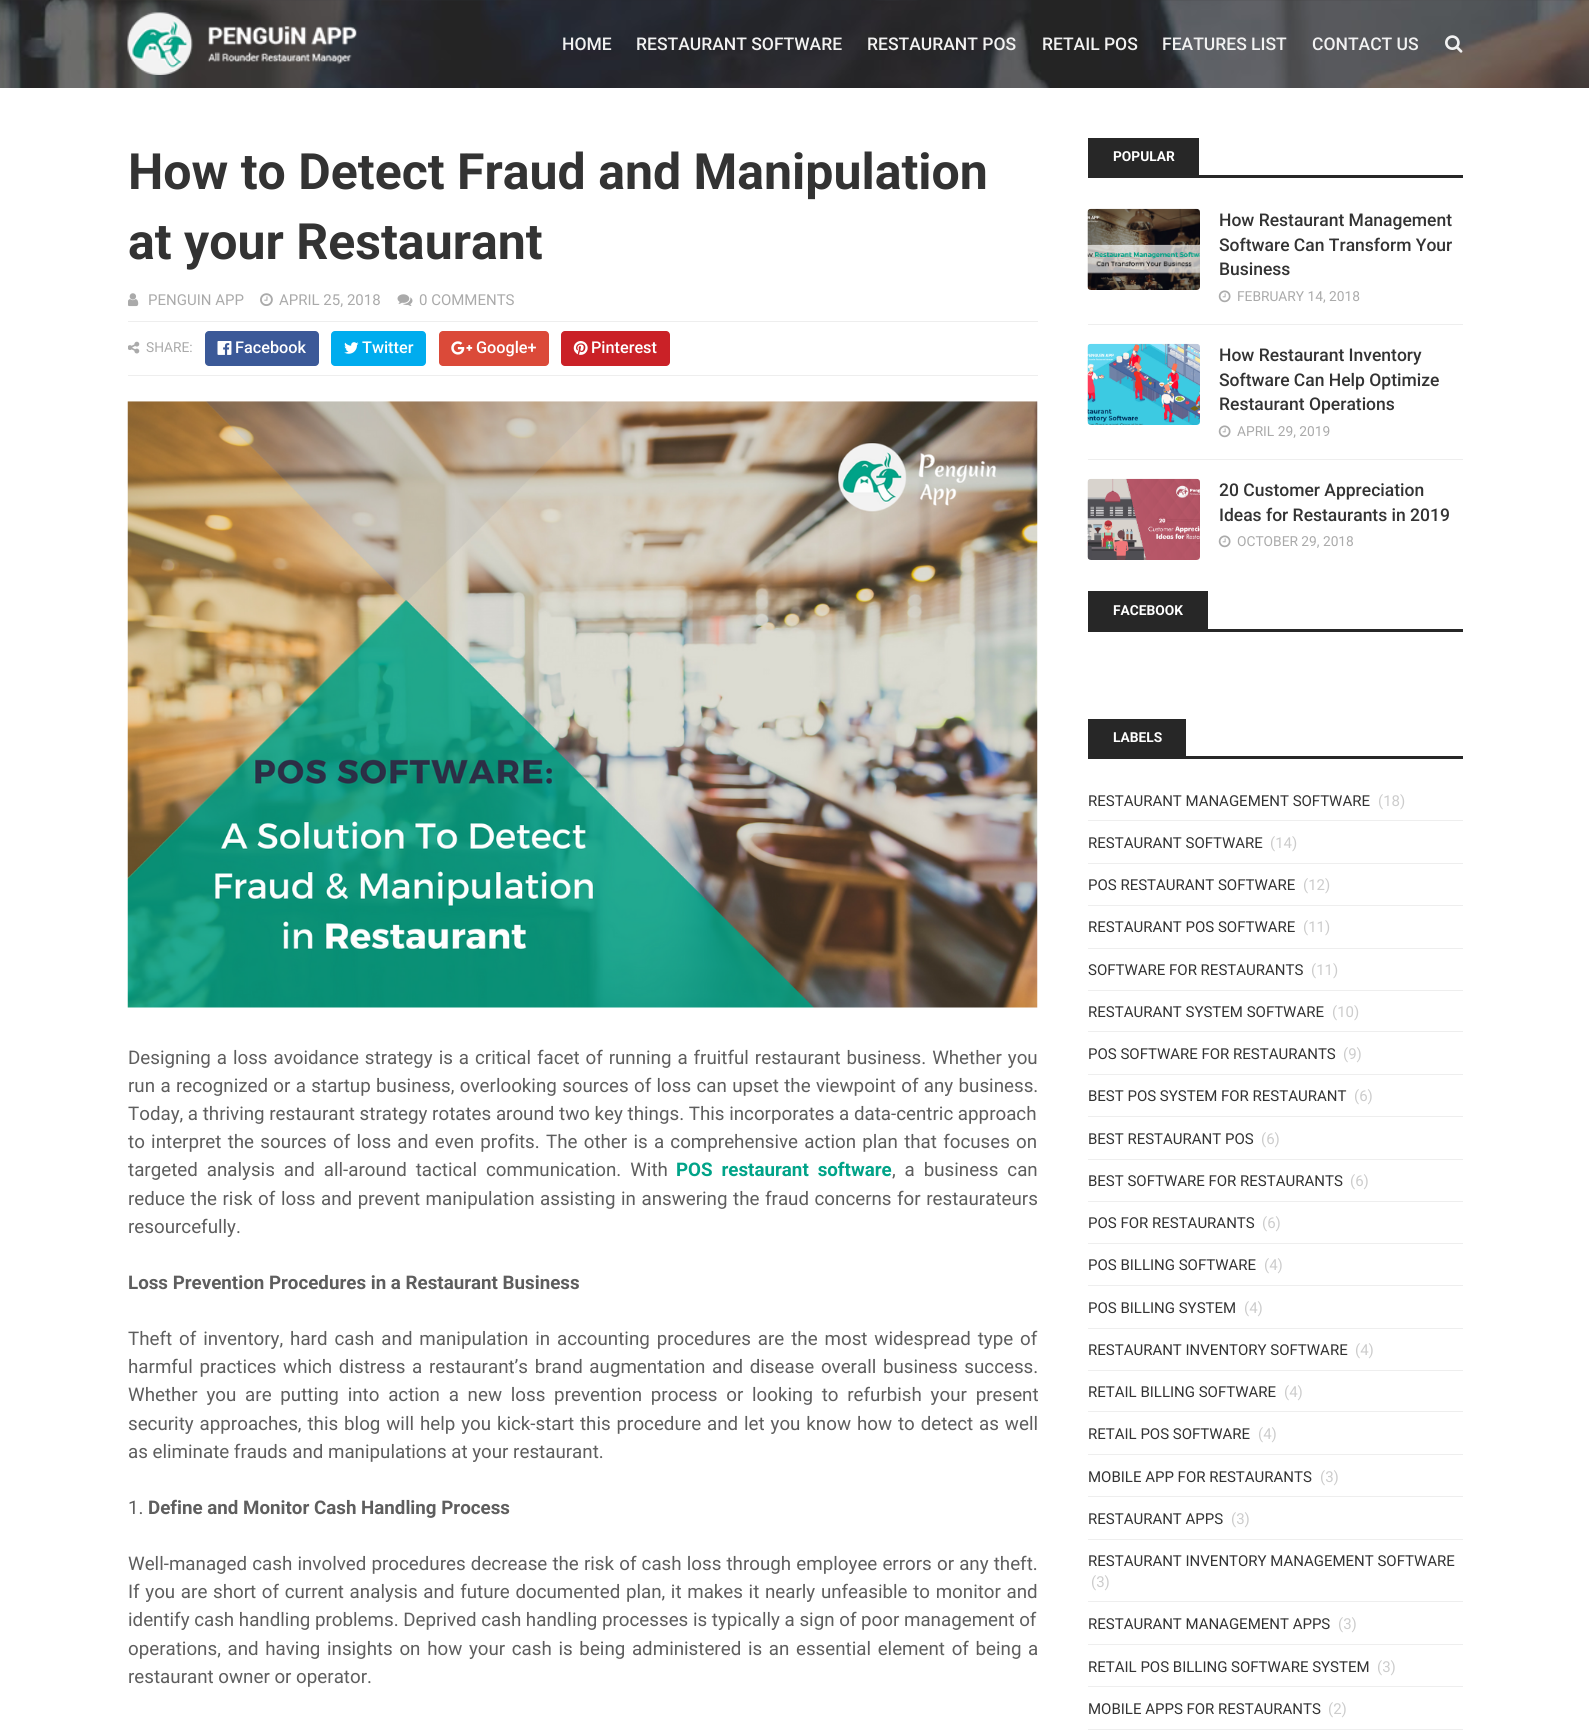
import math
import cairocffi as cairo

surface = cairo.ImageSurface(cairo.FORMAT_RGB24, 1589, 1733)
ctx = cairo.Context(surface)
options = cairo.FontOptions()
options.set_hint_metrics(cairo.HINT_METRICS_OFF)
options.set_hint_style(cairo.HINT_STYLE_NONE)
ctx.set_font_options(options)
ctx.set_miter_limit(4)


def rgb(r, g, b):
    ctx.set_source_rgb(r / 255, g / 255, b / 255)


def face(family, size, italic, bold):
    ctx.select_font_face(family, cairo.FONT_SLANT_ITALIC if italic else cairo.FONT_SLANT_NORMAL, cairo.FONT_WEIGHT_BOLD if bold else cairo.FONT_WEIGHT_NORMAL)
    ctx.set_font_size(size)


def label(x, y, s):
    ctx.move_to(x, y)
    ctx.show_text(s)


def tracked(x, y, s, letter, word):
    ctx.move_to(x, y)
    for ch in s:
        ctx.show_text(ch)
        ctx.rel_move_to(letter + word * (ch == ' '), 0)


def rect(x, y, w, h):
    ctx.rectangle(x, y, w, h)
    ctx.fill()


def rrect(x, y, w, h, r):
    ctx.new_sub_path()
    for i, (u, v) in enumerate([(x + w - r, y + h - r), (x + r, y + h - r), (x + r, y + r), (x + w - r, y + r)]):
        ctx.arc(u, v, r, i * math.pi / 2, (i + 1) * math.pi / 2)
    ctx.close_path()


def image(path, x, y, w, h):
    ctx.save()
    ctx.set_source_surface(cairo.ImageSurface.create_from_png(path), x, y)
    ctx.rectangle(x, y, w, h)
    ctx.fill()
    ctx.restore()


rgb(255, 255, 255)
ctx.paint()
image('image0.png', 0, 0, 1589, 88)
image('image1.png', 127, 12, 230, 63)
face('Roboto Medium', 17.5, 0, 0)
rgb(242, 242, 242)
label(562, 50, 'HOME')
label(636, 50, 'RESTAURANT SOFTWARE')
label(867, 50, 'RESTAURANT POS')
label(1042, 50, 'RETAIL POS')
label(1162, 50, 'FEATURES LIST')
label(1312, 50, 'CONTACT US')
image('image2.png', 1445, 35, 18, 18)
face('Roboto', 50, 0, 1)
rgb(51, 51, 51)
label(128, 189, 'How to Detect Fraud and Manipulation')
label(128, 259, 'at your Restaurant')
rgb(238, 238, 238)
rect(128, 321, 910, 1)
image('image3.png', 128, 293, 11, 14)
face('Roboto', 15, 0, 0)
rgb(170, 170, 170)
label(148, 305, 'PENGUIN APP')
image('image4.png', 260, 293, 13, 13)
label(279, 305, 'APRIL 25, 2018')
image('image5.png', 397, 294, 16, 12)
label(419, 305, '0 COMMENTS')
rgb(238, 238, 238)
rect(128, 375, 910, 1)
image('image6.png', 128, 341, 12, 13)
face('Roboto', 13.75, 0, 0)
rgb(170, 170, 170)
label(146, 352, 'SHARE:')
rgb(59, 89, 152)
rrect(205, 331, 114, 35, 4)
ctx.fill()
image('image7.png', 217, 341, 15, 14)
face('Roboto Medium', 16.25, 0, 0)
rgb(255, 255, 255)
label(235, 353, 'Facebook')
rgb(0, 172, 238)
rrect(331, 331, 95, 35, 4)
ctx.fill()
image('image8.png', 344, 342, 15, 12)
rgb(255, 255, 255)
label(362, 353, 'Twitter')
rgb(219, 74, 57)
rrect(439, 331, 110, 35, 4)
ctx.fill()
image('image9.png', 451, 341, 22, 14)
rgb(255, 255, 255)
label(476, 353, 'Google+')
rgb(202, 33, 39)
rrect(561, 331, 109, 35, 4)
ctx.fill()
image('image10.png', 573, 341, 15, 14)
rgb(255, 255, 255)
label(591, 353, 'Pinterest')
image('image11.png', 127, 401, 911, 607)
face('Roboto', 18.75, 0, 0)
rgb(94, 94, 94)
tracked(128, 1064, 'Designing a loss avoidance strategy is a critical facet of running a fruitful restaurant business. Whether you', 0, 1.3)
tracked(128, 1092, 'run a recognized or a startup business, overlooking sources of loss can upset the viewpoint of any business.', 0, 0.7)
label(128, 1120, 'Today, a thriving restaurant strategy rotates around two key things. This incorporates a data-centric approach')
tracked(128, 1148, 'to interpret the sources of loss and even profits. The other is a comprehensive action plan that focuses on', 0, 1.6)
tracked(128, 1176, 'targeted analysis and all-around tactical communication. With', 0, 4.25)
face('Roboto', 18.75, 0, 1)
rgb(0, 163, 136)
tracked(676, 1176, 'POS restaurant software', 0, 4.25)
face('Roboto', 18.75, 0, 0)
rgb(94, 94, 94)
tracked(892, 1176, ', a business can', 0, 4.25)
tracked(128, 1205, 'reduce the risk of loss and prevent manipulation assisting in answering the fraud concerns for restaurateurs', 0, 0.9)
label(128, 1233, 'resourcefully.')
face('Roboto', 18.75, 0, 1)
label(128, 1289, 'Loss Prevention Procedures in a Restaurant Business')
face('Roboto', 18.75, 0, 0)
tracked(128, 1345, 'Theft of inventory, hard cash and manipulation in accounting procedures are the most widespread type of', 0, 2.25)
tracked(128, 1373, 'harmful practices which distress a restaurant’s brand augmentation and disease overall business success.', 0, 2)
tracked(128, 1401, 'Whether you are putting into action a new loss prevention process or looking to refurbish your present', 0, 4.1)
tracked(128, 1430, 'security approaches, this blog will help you kick-start this procedure and let you know how to detect as well', 0, 1.25)
label(128, 1458, 'as eliminate frauds and manipulations at your restaurant.')
label(128, 1514, '1.')
face('Roboto', 18.75, 0, 1)
label(148, 1514, 'Define and Monitor Cash Handling Process')
face('Roboto', 18.75, 0, 0)
tracked(128, 1570, 'Well-managed cash involved procedures decrease the risk of cash loss through employee errors or any theft.', 0, 0.5)
tracked(128, 1598, 'If you are short of current analysis and future documented plan, it makes it nearly unfeasible to monitor and', 0, 1)
label(128, 1626, 'identify cash handling problems. Deprived cash handling processes is typically a sign of poor management of')
tracked(128, 1655, 'operations, and having insights on how your cash is being administered is an essential element of being a', 0, 2)
label(128, 1683, 'restaurant owner or operator.')
rgb(39, 39, 39)
rect(1088, 175, 375, 3)
rect(1088, 138, 111, 37)
face('Roboto', 13.75, 0, 1)
rgb(255, 255, 255)
label(1113, 161, 'POPULAR')
image('image12.png', 1087, 208, 113, 82)
face('Roboto Medium', 17.5, 0, 0)
rgb(51, 51, 51)
label(1219, 226, 'How Restaurant Management')
label(1219, 251, 'Software Can Transform Your')
label(1219, 275, 'Business')
image('image13.png', 1218, 290, 13, 13)
face('Roboto', 13.75, 0, 0)
rgb(170, 170, 170)
label(1237, 301, 'FEBRUARY 14, 2018')
rgb(238, 238, 238)
rect(1088, 324, 375, 1)
image('image14.png', 1087, 343, 113, 82)
face('Roboto Medium', 17.5, 0, 0)
rgb(51, 51, 51)
label(1219, 361, 'How Restaurant Inventory')
label(1219, 386, 'Software Can Help Optimize')
label(1219, 410, 'Restaurant Operations')
image('image13.png', 1218, 425, 13, 13)
face('Roboto', 13.75, 0, 0)
rgb(170, 170, 170)
label(1237, 436, 'APRIL 29, 2019')
rgb(238, 238, 238)
rect(1088, 459, 375, 1)
image('image15.png', 1087, 478, 113, 82)
face('Roboto Medium', 17.5, 0, 0)
rgb(51, 51, 51)
label(1219, 496, '20 Customer Appreciation')
label(1219, 521, 'Ideas for Restaurants in 2019')
image('image13.png', 1218, 535, 13, 13)
face('Roboto', 13.75, 0, 0)
rgb(170, 170, 170)
label(1237, 546, 'OCTOBER 29, 2018')
rgb(39, 39, 39)
rect(1088, 629, 375, 3)
rect(1088, 591, 120, 38)
face('Roboto', 13.75, 0, 1)
rgb(255, 255, 255)
label(1113, 615, 'FACEBOOK')
rgb(39, 39, 39)
rect(1088, 756, 375, 3)
rect(1088, 719, 98, 37)
rgb(255, 255, 255)
label(1113, 742, 'LABELS')
face('Roboto', 15, 0, 0)
rgb(51, 51, 51)
label(1088, 806, 'RESTAURANT MANAGEMENT SOFTWARE')
rgb(204, 204, 204)
label(1378, 806, '(18)')
rgb(238, 238, 238)
rect(1088, 820, 375, 1)
rgb(51, 51, 51)
label(1088, 848, 'RESTAURANT SOFTWARE')
rgb(204, 204, 204)
label(1270, 848, '(14)')
rgb(238, 238, 238)
rect(1088, 863, 375, 1)
rgb(51, 51, 51)
label(1088, 890, 'POS RESTAURANT SOFTWARE')
rgb(204, 204, 204)
label(1303, 890, '(12)')
rgb(238, 238, 238)
rect(1088, 905, 375, 1)
rgb(51, 51, 51)
label(1088, 932, 'RESTAURANT POS SOFTWARE')
rgb(204, 204, 204)
label(1303, 932, '(11)')
rgb(238, 238, 238)
rect(1088, 948, 375, 1)
rgb(51, 51, 51)
label(1088, 975, 'SOFTWARE FOR RESTAURANTS')
rgb(204, 204, 204)
label(1311, 975, '(11)')
rgb(238, 238, 238)
rect(1088, 990, 375, 1)
rgb(51, 51, 51)
label(1088, 1017, 'RESTAURANT SYSTEM SOFTWARE')
rgb(204, 204, 204)
label(1332, 1017, '(10)')
rgb(238, 238, 238)
rect(1088, 1031, 375, 1)
rgb(51, 51, 51)
label(1088, 1059, 'POS SOFTWARE FOR RESTAURANTS')
rgb(204, 204, 204)
label(1343, 1059, '(9)')
rgb(238, 238, 238)
rect(1088, 1074, 375, 1)
rgb(51, 51, 51)
label(1088, 1101, 'BEST POS SYSTEM FOR RESTAURANT')
rgb(204, 204, 204)
label(1354, 1101, '(6)')
rgb(238, 238, 238)
rect(1088, 1116, 375, 1)
rgb(51, 51, 51)
label(1088, 1144, 'BEST RESTAURANT POS')
rgb(204, 204, 204)
label(1261, 1144, '(6)')
rgb(238, 238, 238)
rect(1088, 1159, 375, 1)
rgb(51, 51, 51)
label(1088, 1186, 'BEST SOFTWARE FOR RESTAURANTS')
rgb(204, 204, 204)
label(1350, 1186, '(6)')
rgb(238, 238, 238)
rect(1088, 1201, 375, 1)
rgb(51, 51, 51)
label(1088, 1228, 'POS FOR RESTAURANTS')
rgb(204, 204, 204)
label(1262, 1228, '(6)')
rgb(238, 238, 238)
rect(1088, 1243, 375, 1)
rgb(51, 51, 51)
label(1088, 1270, 'POS BILLING SOFTWARE')
rgb(204, 204, 204)
label(1264, 1270, '(4)')
rgb(238, 238, 238)
rect(1088, 1285, 375, 1)
rgb(51, 51, 51)
label(1088, 1313, 'POS BILLING SYSTEM')
rgb(204, 204, 204)
label(1244, 1313, '(4)')
rgb(238, 238, 238)
rect(1088, 1328, 375, 1)
rgb(51, 51, 51)
label(1088, 1355, 'RESTAURANT INVENTORY SOFTWARE')
rgb(204, 204, 204)
label(1355, 1355, '(4)')
rgb(238, 238, 238)
rect(1088, 1370, 375, 1)
rgb(51, 51, 51)
label(1088, 1397, 'RETAIL BILLING SOFTWARE')
rgb(204, 204, 204)
label(1284, 1397, '(4)')
rgb(238, 238, 238)
rect(1088, 1411, 375, 1)
rgb(51, 51, 51)
label(1088, 1439, 'RETAIL POS SOFTWARE')
rgb(204, 204, 204)
label(1258, 1439, '(4)')
rgb(238, 238, 238)
rect(1088, 1454, 375, 1)
rgb(51, 51, 51)
label(1088, 1482, 'MOBILE APP FOR RESTAURANTS')
rgb(204, 204, 204)
label(1320, 1482, '(3)')
rgb(238, 238, 238)
rect(1088, 1496, 375, 1)
rgb(51, 51, 51)
label(1088, 1524, 'RESTAURANT APPS')
rgb(204, 204, 204)
label(1231, 1524, '(3)')
rgb(238, 238, 238)
rect(1088, 1539, 375, 1)
rgb(51, 51, 51)
label(1088, 1566, 'RESTAURANT INVENTORY MANAGEMENT SOFTWARE')
rgb(204, 204, 204)
label(1091, 1587, '(3)')
rgb(238, 238, 238)
rect(1088, 1601, 375, 1)
rgb(51, 51, 51)
label(1088, 1629, 'RESTAURANT MANAGEMENT APPS')
rgb(204, 204, 204)
label(1338, 1629, '(3)')
rgb(238, 238, 238)
rect(1088, 1644, 375, 1)
rgb(51, 51, 51)
label(1088, 1672, 'RETAIL POS BILLING SOFTWARE SYSTEM')
rgb(204, 204, 204)
label(1377, 1672, '(3)')
rgb(238, 238, 238)
rect(1088, 1686, 375, 1)
rgb(51, 51, 51)
label(1088, 1714, 'MOBILE APPS FOR RESTAURANTS')
rgb(204, 204, 204)
label(1328, 1714, '(2)')
rgb(238, 238, 238)
rect(1088, 1729, 375, 1)
surface.write_to_png('render.png')
